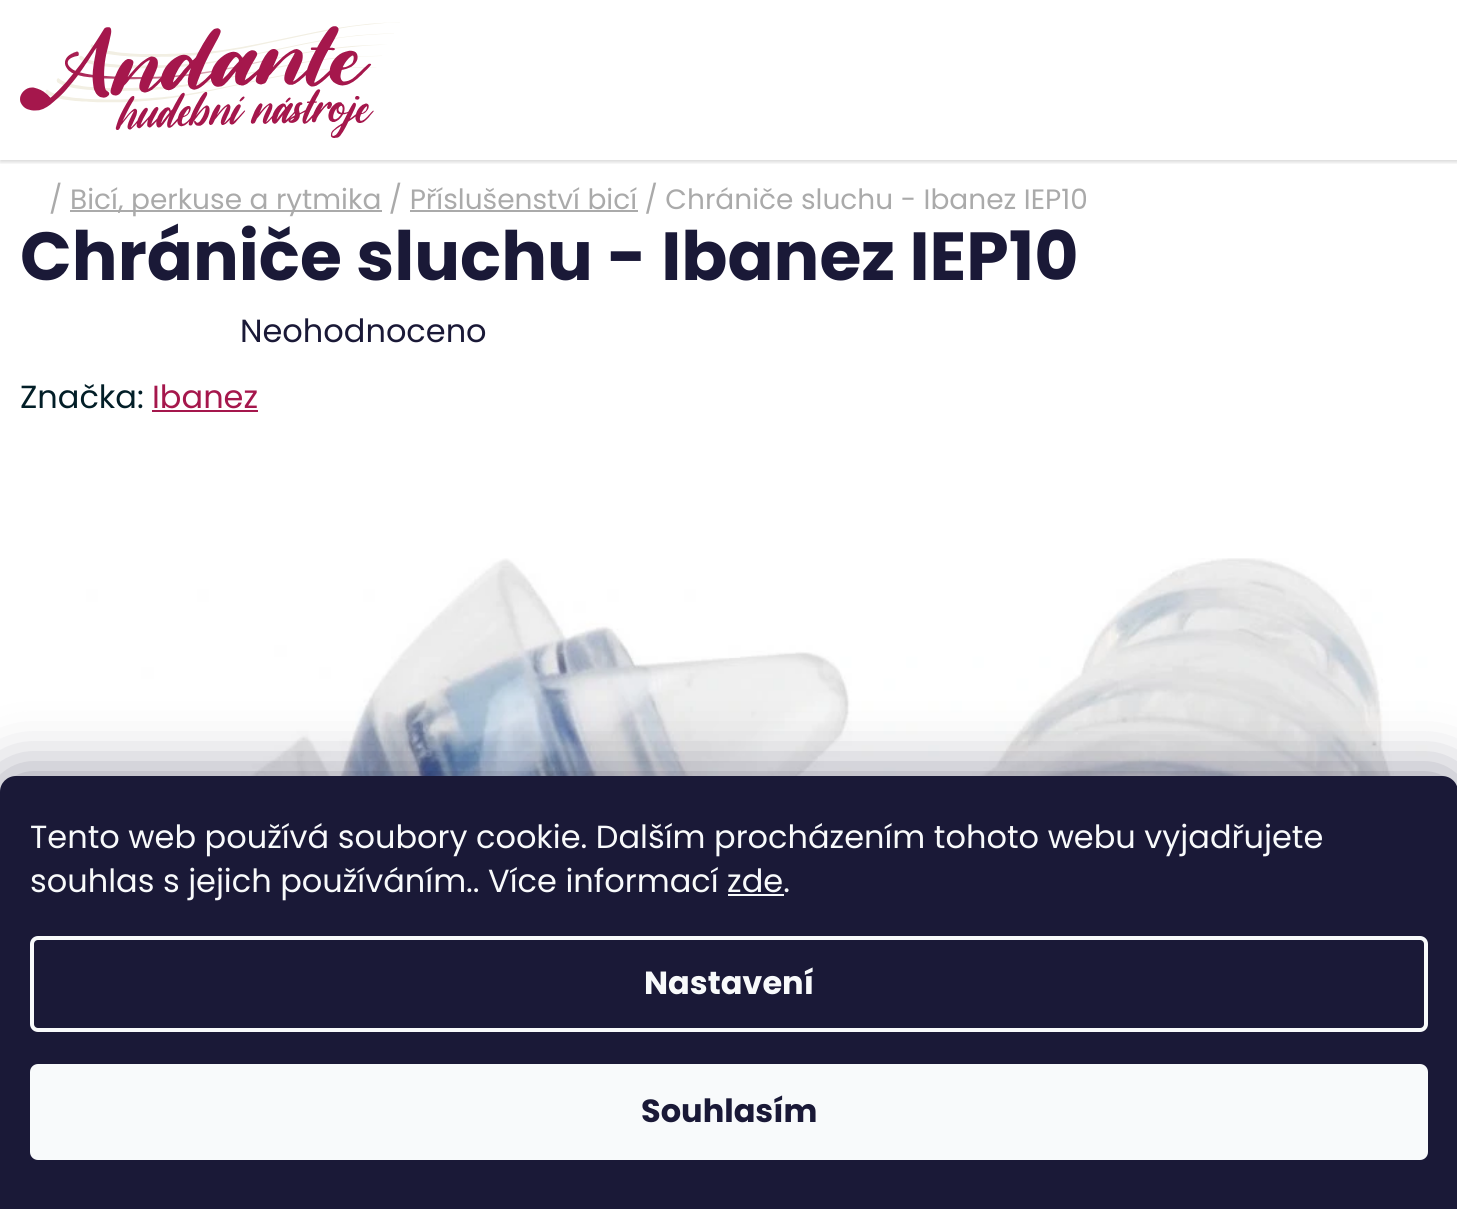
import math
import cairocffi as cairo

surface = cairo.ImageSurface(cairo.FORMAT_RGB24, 1457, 1209)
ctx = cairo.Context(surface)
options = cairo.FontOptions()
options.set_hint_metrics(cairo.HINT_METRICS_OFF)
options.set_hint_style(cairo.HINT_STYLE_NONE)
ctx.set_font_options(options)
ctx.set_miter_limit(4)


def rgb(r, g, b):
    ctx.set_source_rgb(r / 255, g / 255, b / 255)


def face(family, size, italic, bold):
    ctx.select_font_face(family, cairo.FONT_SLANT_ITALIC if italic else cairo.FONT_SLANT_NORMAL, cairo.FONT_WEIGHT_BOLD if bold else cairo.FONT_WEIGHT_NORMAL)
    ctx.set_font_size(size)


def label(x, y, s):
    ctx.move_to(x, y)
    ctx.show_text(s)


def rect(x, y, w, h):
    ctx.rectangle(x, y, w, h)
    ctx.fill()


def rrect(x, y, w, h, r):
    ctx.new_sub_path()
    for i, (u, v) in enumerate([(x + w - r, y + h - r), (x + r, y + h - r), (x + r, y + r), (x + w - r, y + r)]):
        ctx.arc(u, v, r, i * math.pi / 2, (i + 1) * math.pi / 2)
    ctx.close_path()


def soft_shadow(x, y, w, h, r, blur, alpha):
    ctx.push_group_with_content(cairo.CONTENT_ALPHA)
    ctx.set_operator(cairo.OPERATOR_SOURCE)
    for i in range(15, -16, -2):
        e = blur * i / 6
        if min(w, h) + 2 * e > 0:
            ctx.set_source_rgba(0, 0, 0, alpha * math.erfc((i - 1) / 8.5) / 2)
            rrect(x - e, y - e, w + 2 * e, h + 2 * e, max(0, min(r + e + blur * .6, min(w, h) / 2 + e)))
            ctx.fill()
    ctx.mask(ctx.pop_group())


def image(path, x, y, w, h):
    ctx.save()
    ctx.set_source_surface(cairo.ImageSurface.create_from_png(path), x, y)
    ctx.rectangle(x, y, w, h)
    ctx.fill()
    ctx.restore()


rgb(255, 255, 255)
ctx.paint()
ctx.save()
ctx.rectangle(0, 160, 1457, 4)
ctx.clip()
rgb(0, 0, 0)
soft_shadow(0, 2, 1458, 160, 0, 2, 0.16)
ctx.restore()
image('image0.png', 20, 22, 380, 116)
face('Poppins', 28, 0, 0)
rgb(170, 170, 170)
label(49, 209, '/')
rect(70, 210, 312, 2)
label(70, 209, 'Bicí, perkuse a rytmika / Příslušenství bicí / Chrániče sluchu - Ibanez IEP10')
rect(410, 210, 228, 2)
face('Poppins', 68, 0, 1)
rgb(26, 25, 55)
label(20, 280, 'Chrániče sluchu - Ibanez IEP10')
face('Poppins', 32, 0, 0)
label(240, 342, 'Neohodnoceno')
rgb(2, 30, 39)
label(20, 408, 'Značka:')
rgb(165, 23, 76)
label(152, 408, 'Ibanez')
rect(152, 410, 106, 2)
image('image1.png', 20, 558, 1418, 218)
rgb(27, 25, 57)
soft_shadow(0, 776, 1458, 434, 16, 30, 0.5)
rgb(26, 25, 55)
ctx.new_path()
ctx.move_to(16, 776)
ctx.line_to(1442, 776)
ctx.curve_to(1451, 776, 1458, 783, 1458, 792)
ctx.line_to(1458, 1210)
ctx.line_to(0, 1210)
ctx.line_to(0, 792)
ctx.curve_to(0, 783, 7, 776, 16, 776)
ctx.close_path()
ctx.fill()
rgb(248, 250, 251)
label(30, 848, 'Tento web používá soubory cookie. Dalším procházením tohoto webu vyjadřujete')
label(30, 892, 'souhlas s jejich používáním.. Více informací zde.')
rect(728, 894, 56, 2)
rrect(32, 938, 1394, 92, 6)
ctx.set_line_width(4)
ctx.stroke()
face('Poppins', 32, 0, 1)
label(644, 994, 'Nastavení')
rrect(30, 1064, 1398, 96, 8)
ctx.fill()
rgb(26, 25, 55)
label(641, 1122, 'Souhlasím')
surface.write_to_png('render.png')
